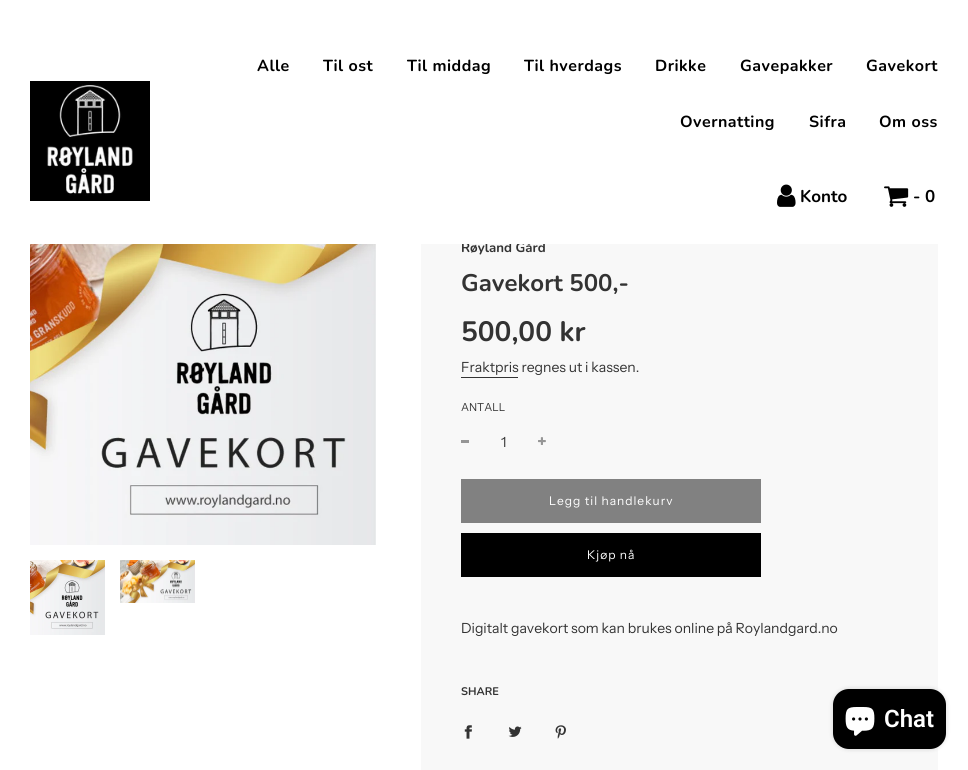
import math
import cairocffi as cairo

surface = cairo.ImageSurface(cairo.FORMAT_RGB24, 968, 770)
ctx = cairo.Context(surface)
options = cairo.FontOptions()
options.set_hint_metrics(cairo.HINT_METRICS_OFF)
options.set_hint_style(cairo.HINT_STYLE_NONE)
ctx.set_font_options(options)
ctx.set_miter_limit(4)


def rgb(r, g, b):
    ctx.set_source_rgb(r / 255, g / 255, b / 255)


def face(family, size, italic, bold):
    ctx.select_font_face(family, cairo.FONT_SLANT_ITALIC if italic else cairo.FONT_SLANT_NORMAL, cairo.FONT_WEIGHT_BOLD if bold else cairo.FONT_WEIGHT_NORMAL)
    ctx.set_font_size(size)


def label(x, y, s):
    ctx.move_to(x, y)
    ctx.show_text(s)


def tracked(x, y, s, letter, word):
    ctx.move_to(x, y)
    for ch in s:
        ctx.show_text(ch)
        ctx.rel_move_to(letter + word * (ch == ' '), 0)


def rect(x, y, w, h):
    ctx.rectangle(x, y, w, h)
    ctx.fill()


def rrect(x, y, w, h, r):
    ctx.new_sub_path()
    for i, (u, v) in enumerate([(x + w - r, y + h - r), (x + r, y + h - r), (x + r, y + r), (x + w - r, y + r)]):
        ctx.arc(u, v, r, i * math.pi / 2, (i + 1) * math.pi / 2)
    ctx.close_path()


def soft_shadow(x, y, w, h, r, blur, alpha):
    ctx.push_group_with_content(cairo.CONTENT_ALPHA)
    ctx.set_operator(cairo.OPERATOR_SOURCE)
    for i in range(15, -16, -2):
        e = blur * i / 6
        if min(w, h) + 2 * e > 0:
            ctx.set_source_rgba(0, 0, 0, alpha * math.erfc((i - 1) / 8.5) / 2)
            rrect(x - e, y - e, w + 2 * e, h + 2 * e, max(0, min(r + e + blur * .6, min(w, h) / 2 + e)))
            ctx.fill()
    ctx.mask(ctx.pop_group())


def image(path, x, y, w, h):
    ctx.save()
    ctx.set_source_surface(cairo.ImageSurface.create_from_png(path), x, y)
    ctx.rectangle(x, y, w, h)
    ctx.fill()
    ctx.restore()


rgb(255, 255, 255)
ctx.paint()
rgb(248, 248, 248)
rect(421, 244, 517, 526)
face('Nunito', 13.25, 0, 1)
rgb(51, 51, 51)
label(461, 252, 'Røyland Gård')
rgb(255, 255, 255)
rect(461, 241, 84, 3)
image('image0.png', 30, 81, 120, 120)
face('Nunito', 16, 0, 1)
rgb(0, 0, 0)
tracked(257, 71, 'Alle', 0.5, 0)
tracked(323, 71, 'Til ost', 0.5, 0)
tracked(407, 71, 'Til middag', 0.5, 0)
tracked(524, 71, 'Til hverdags', 0.5, 0)
tracked(655, 71, 'Drikke', 0.5, 0)
tracked(740, 71, 'Gavepakker', 0.5, 0)
tracked(866, 71, 'Gavekort', 0.5, 0)
tracked(680, 127, 'Overnatting', 0.5, 0)
tracked(809, 127, 'Sifra', 0.5, 0)
tracked(879, 127, 'Om oss', 0.5, 0)
image('image1.png', 777, 184, 19, 23)
face('Nunito', 17, 0, 1)
label(800, 202, 'Konto')
image('image2.png', 884, 186, 25, 21)
label(913, 202, '- 0')
image('image3.png', 30, 244, 346, 301)
image('image4.png', 30, 560, 75, 75)
image('image5.png', 120, 560, 75, 43)
face('Nunito', 24, 0, 1)
rgb(51, 51, 51)
label(461, 291, 'Gavekort 500,-')
face('Nunito', 28, 0, 1)
label(461, 341, '500,00 kr')
face('Instrument Sans', 14, 0, 0)
label(461, 372, 'Fraktpris regnes ut i kassen.')
rect(461, 377, 57, 1)
face('Instrument Sans', 11, 0, 0)
label(461, 411, 'ANTALL')
rgb(150, 150, 150)
rect(461, 440, 8, 3)
face('Instrument Sans', 14, 0, 0)
rgb(51, 51, 51)
label(501, 447, '1')
image('image6.png', 538, 437, 8, 8)
rgb(129, 129, 129)
rect(461, 479, 300, 44)
face('Instrument Sans', 12, 0, 0)
rgb(255, 255, 255)
tracked(549, 505, 'Legg til handlekurv', 1, 0)
rgb(0, 0, 0)
rect(461, 533, 300, 44)
rgb(255, 255, 255)
tracked(587, 559, 'Kjøp nå', 1, 0)
face('Instrument Sans', 14, 0, 0)
rgb(51, 51, 51)
label(461, 633, 'Digitalt gavekort som kan brukes online på Roylandgard.no')
face('Nunito', 11, 0, 1)
label(461, 695, 'SHARE')
image('image7.png', 464, 725, 8, 14)
image('image8.png', 508, 726, 14, 11)
image('image9.png', 555, 725, 11, 14)
rgb(0, 0, 0)
soft_shadow(833, 689, 113, 60, 16, 2.5, 0.15)
rgb(0, 0, 0)
rrect(833, 689, 113, 60, 16)
ctx.fill()
image('image10.png', 845, 707, 30, 29)
face('Roboto SemiBold', 24, 0, 0)
rgb(255, 255, 255)
label(884, 727, 'Chat')
surface.write_to_png('render.png')
